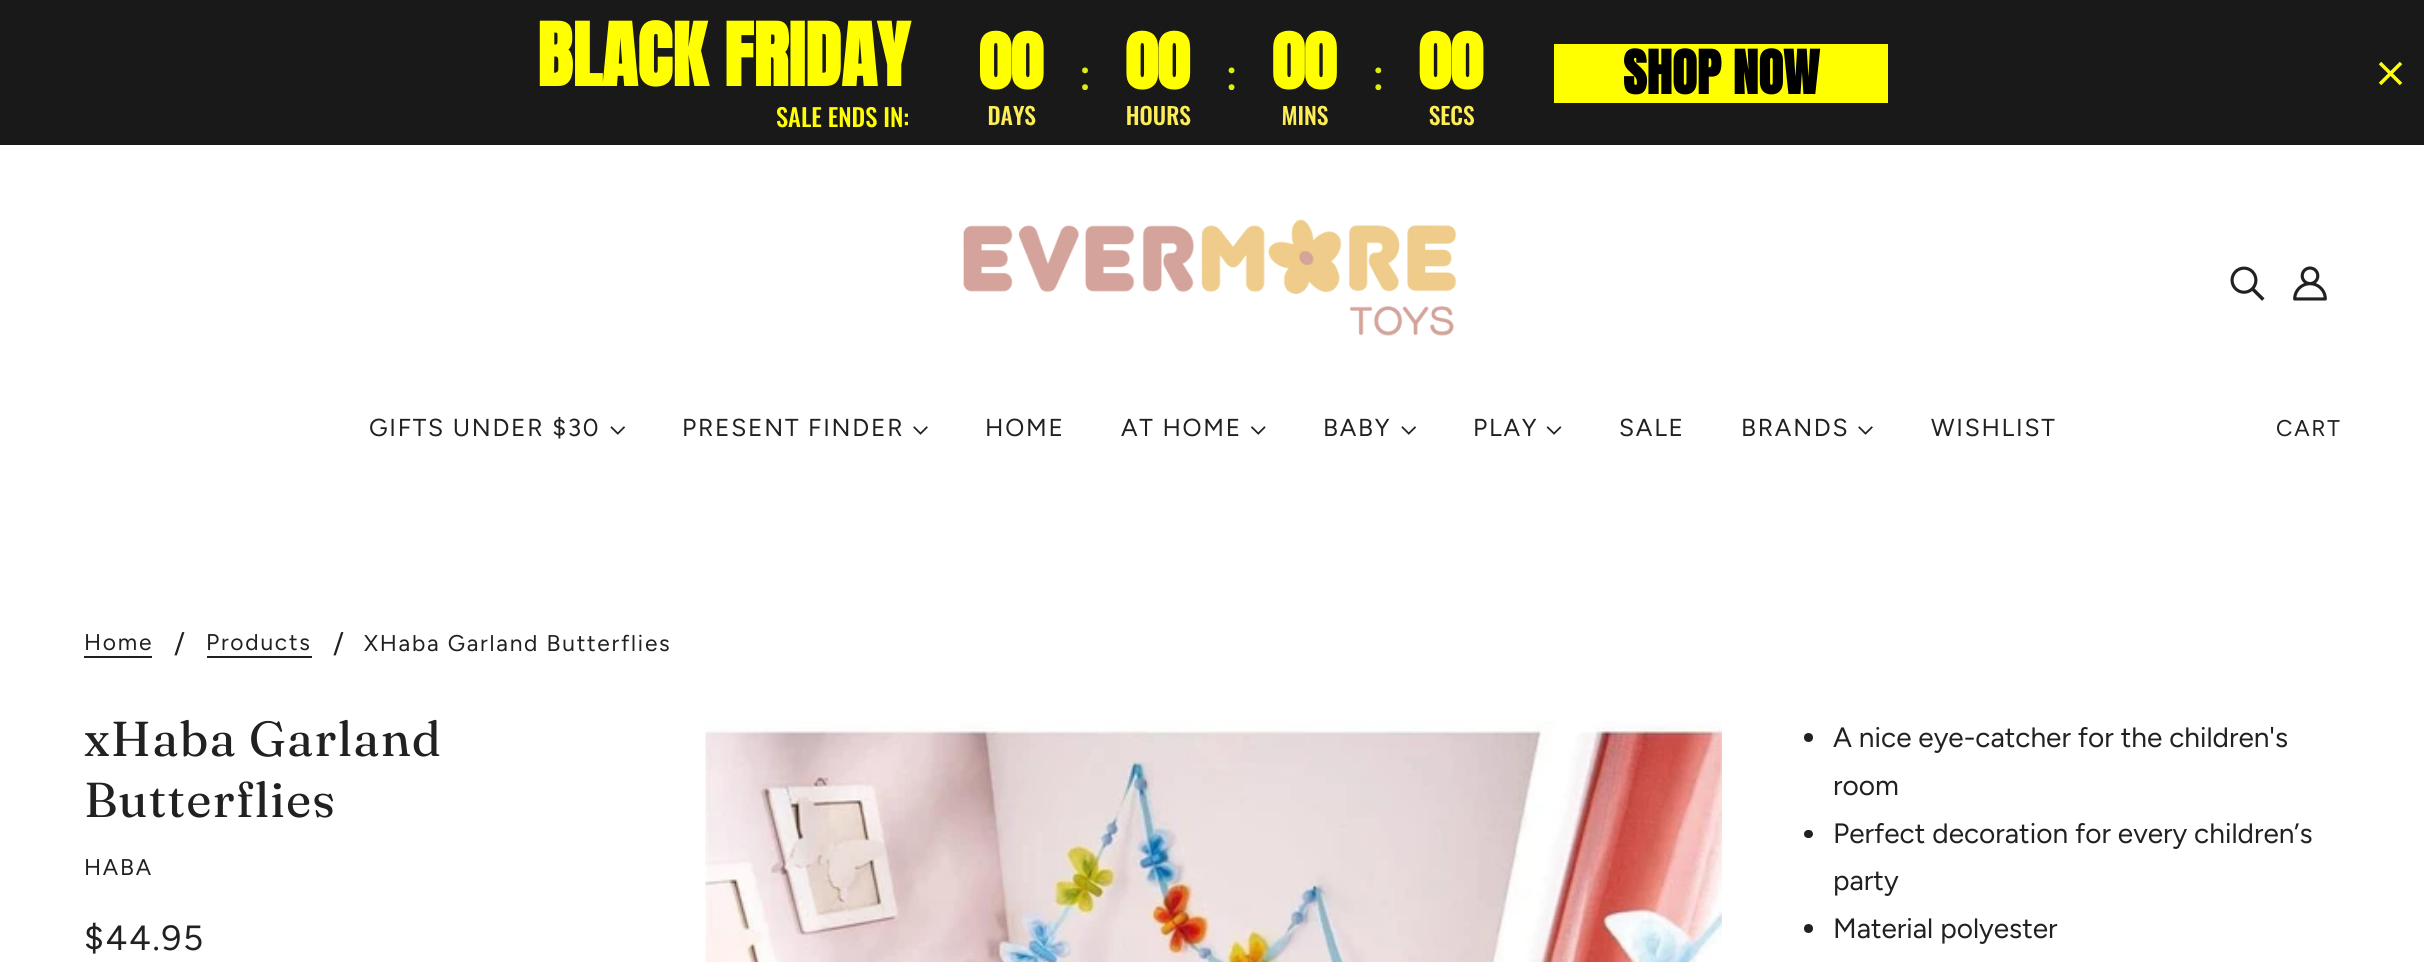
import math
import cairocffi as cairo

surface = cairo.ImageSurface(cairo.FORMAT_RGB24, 2424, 962)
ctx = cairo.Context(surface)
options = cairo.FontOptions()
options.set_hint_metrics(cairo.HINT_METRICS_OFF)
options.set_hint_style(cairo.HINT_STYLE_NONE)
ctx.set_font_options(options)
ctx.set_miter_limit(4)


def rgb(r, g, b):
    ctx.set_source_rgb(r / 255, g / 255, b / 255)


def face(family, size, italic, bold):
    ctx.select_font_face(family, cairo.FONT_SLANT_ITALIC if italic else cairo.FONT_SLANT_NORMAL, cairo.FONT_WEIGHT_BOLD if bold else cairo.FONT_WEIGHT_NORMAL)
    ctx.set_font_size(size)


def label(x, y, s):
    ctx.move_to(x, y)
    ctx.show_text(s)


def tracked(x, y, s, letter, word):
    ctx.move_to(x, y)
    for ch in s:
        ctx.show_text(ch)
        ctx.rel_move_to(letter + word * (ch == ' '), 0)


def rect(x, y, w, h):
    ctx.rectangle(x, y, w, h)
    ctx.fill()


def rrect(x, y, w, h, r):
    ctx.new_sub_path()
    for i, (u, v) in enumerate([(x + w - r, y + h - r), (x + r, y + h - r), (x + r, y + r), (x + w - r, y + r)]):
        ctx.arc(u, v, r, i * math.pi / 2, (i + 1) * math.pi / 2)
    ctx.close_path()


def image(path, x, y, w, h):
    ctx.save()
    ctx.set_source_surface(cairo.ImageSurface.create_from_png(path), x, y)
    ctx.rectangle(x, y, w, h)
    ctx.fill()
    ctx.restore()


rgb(255, 255, 255)
ctx.paint()
rgb(25, 25, 25)
rect(0, 0, 2424, 145)
face('Anton', 73.5, 0, 1)
rgb(255, 255, 0)
label(537, 86, 'BLACK FRIDAY')
face('Oswald Medium', 24.5, 0, 0)
label(776, 127, 'SALE ENDS IN:')
image('image0.png', 980, 30, 504, 96)
rect(1554, 44, 334, 59)
face('Anton', 51, 0, 1)
rgb(0, 0, 0)
label(1623, 94, 'SHOP NOW')
ctx.new_path()
ctx.move_to(2401, 63)
ctx.line_to(2380, 84)
ctx.move_to(2401, 84)
ctx.line_to(2380, 63)
rgb(255, 255, 0)
ctx.set_line_width(3.5)
ctx.stroke()
image('image1.png', 963, 219, 494, 117)
image('image2.png', 2230, 266, 35, 35)
image('image3.png', 2293, 266, 34, 35)
face('Figtree', 24.5, 0, 0)
rgb(33, 33, 33)
tracked(369, 436, 'GIFTS UNDER $30', 1.75, 0)
image('image4.png', 610, 426, 16, 9)
tracked(682, 436, 'PRESENT FINDER', 1.75, 0)
image('image5.png', 913, 426, 15, 9)
tracked(985, 436, 'HOME', 1.75, 0)
tracked(1121, 436, 'AT HOME', 1.75, 0)
image('image6.png', 1250, 426, 16, 9)
tracked(1323, 436, 'BABY', 1.75, 0)
image('image4.png', 1401, 426, 16, 9)
tracked(1473, 436, 'PLAY', 1.75, 0)
image('image7.png', 1546, 426, 16, 9)
tracked(1619, 436, 'SALE', 1.75, 0)
tracked(1741, 436, 'BRANDS', 1.75, 0)
image('image5.png', 1858, 426, 15, 9)
tracked(1931, 436, 'WISHLIST', 1.75, 0)
face('Figtree', 22.75, 0, 0)
tracked(2276, 436, 'CART', 1.75, 0)
tracked(84, 650, 'Home', 1.75, 0)
rect(84, 656, 68, 2)
face('Figtree', 28, 0, 0)
label(174, 653, '/')
face('Figtree', 22.75, 0, 0)
tracked(206, 650, 'Products', 1.75, 0)
rect(207, 656, 105, 2)
face('Figtree', 28, 0, 0)
label(333, 653, '/')
face('Figtree', 22.75, 0, 0)
tracked(364, 651, 'XHaba Garland Butterflies', 1.75, 0)
face('Fraunces', 49, 0, 0)
tracked(84, 756, 'xHaba Garland', 1.25, 0)
tracked(84, 817, 'Butterflies', 1.25, 0)
face('Figtree', 22.75, 0, 0)
tracked(84, 875, 'HABA', 1.75, 0)
face('Figtree', 35, 0, 0)
tracked(84, 950, '$44.95', 1.75, 0)
image('image8.png', 705, 721, 1017, 241)
ctx.arc(1808.5, 737.5, 4.5, 0, 2 * math.pi)
ctx.fill()
face('Figtree', 28, 0, 0)
label(1833, 747, 'A nice eye-catcher for the children\'s')
label(1833, 795, 'room')
rrect(1804, 830, 9, 8, 4)
ctx.fill()
label(1833, 843, 'Perfect decoration for every children’s')
label(1833, 890, 'party')
ctx.new_path()
ctx.arc(1808.5, 928.5, 4.5, 0, 2 * math.pi)
ctx.fill()
label(1833, 938, 'Material polyester')
surface.write_to_png('render.png')
